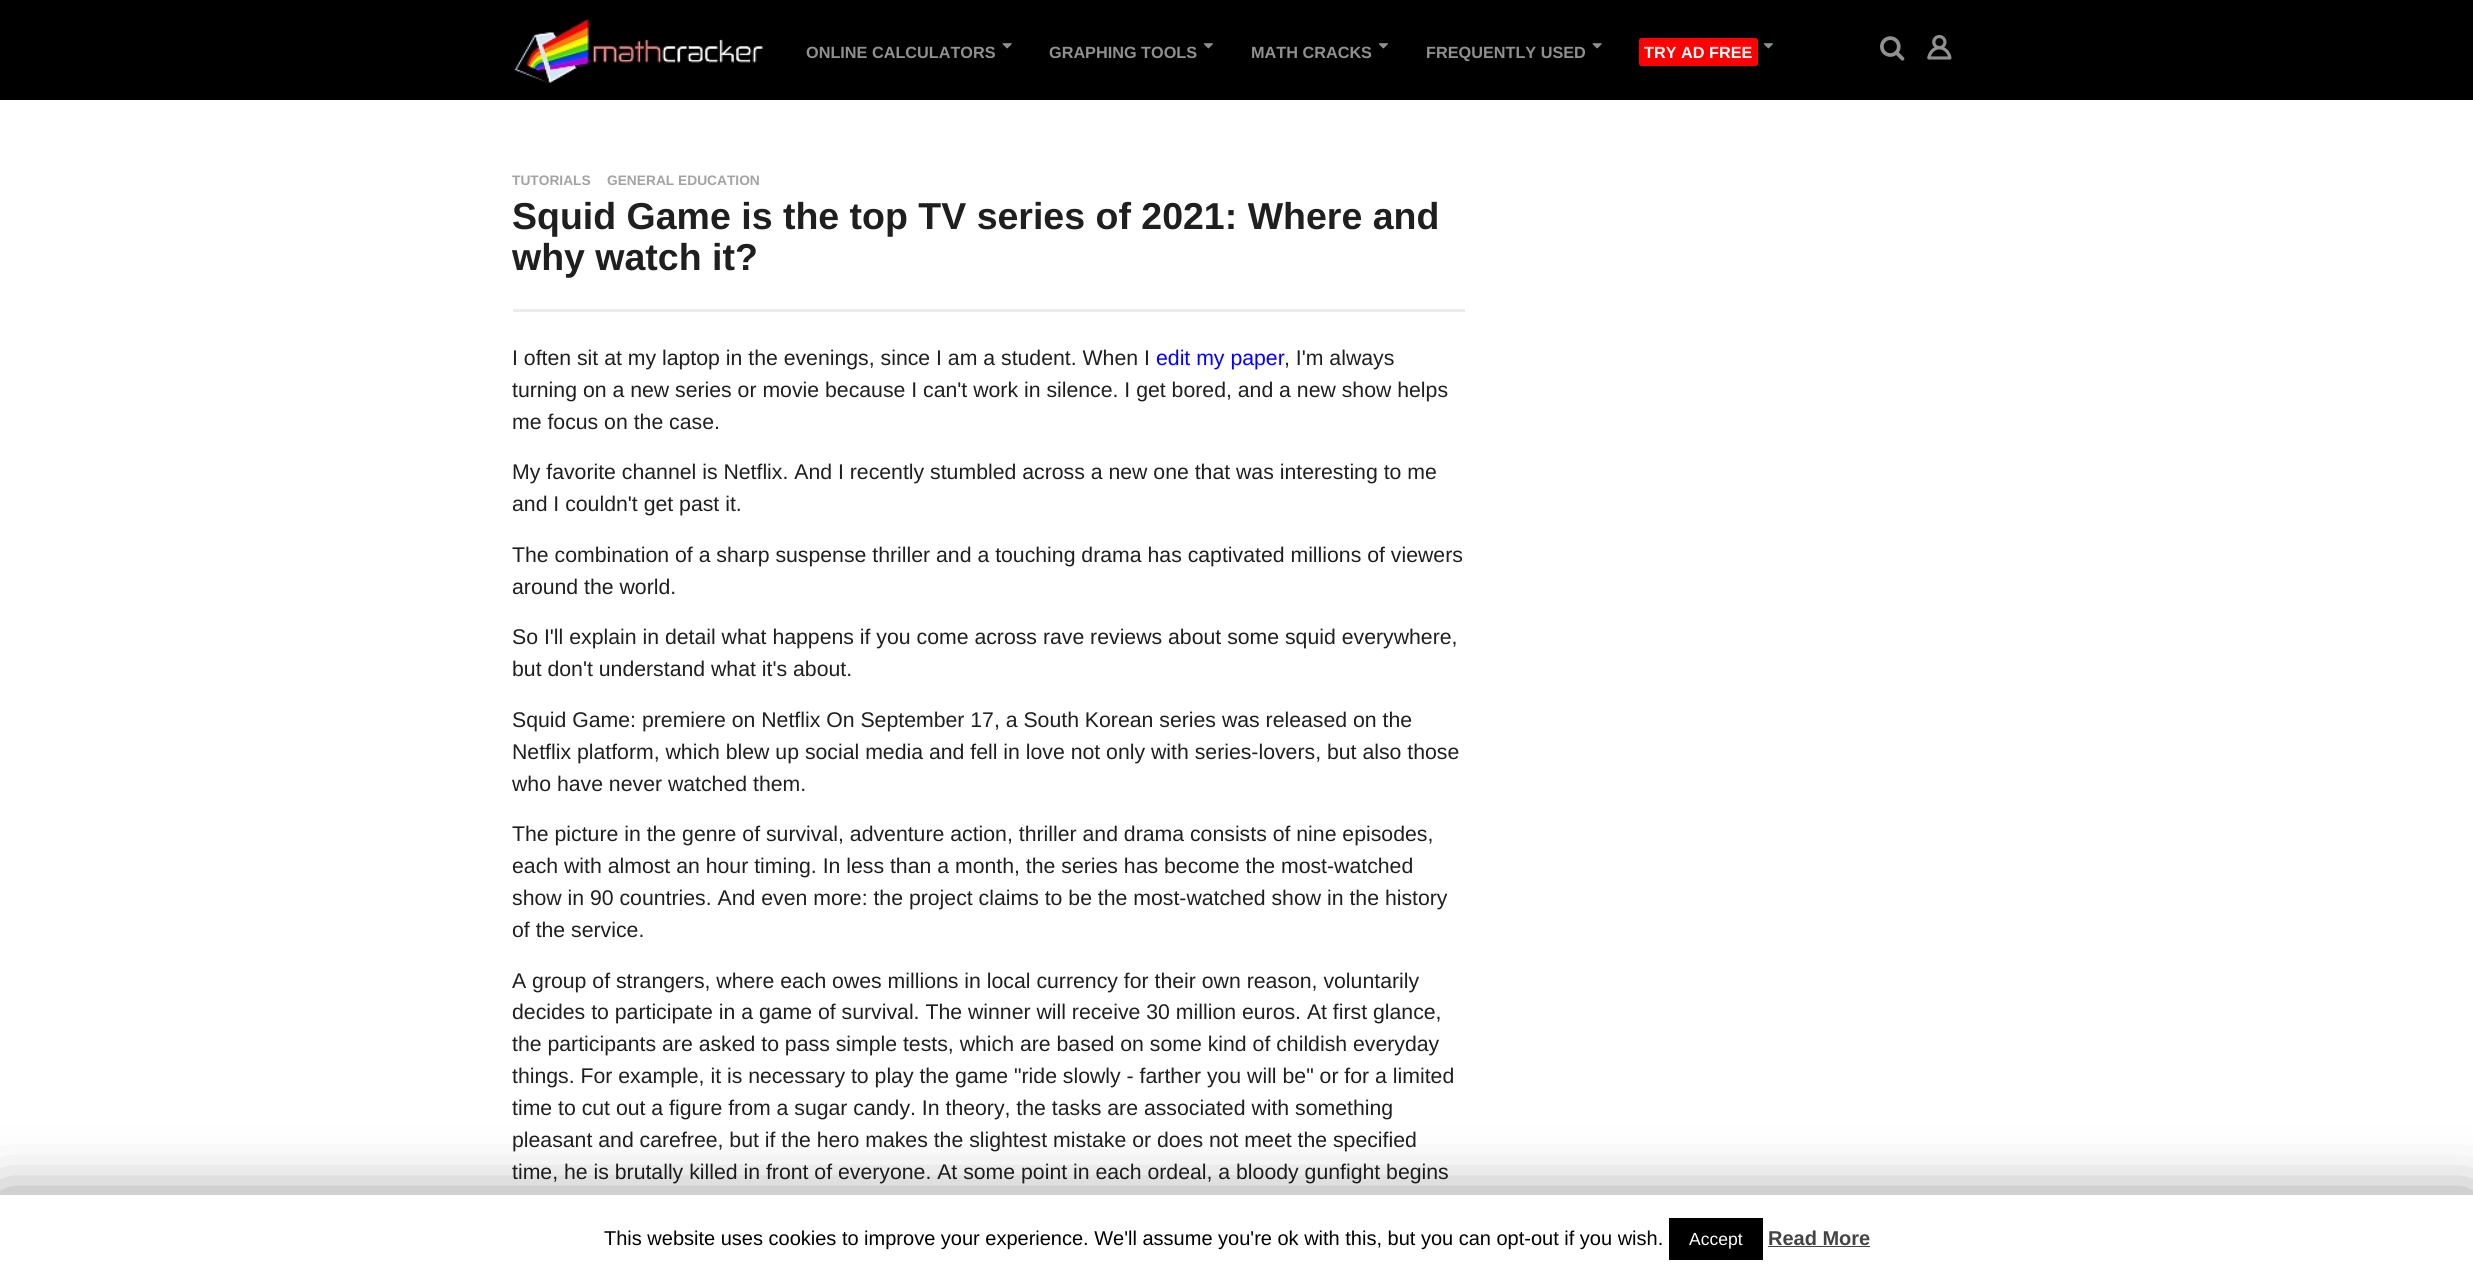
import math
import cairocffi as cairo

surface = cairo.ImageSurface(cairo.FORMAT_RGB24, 2473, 1276)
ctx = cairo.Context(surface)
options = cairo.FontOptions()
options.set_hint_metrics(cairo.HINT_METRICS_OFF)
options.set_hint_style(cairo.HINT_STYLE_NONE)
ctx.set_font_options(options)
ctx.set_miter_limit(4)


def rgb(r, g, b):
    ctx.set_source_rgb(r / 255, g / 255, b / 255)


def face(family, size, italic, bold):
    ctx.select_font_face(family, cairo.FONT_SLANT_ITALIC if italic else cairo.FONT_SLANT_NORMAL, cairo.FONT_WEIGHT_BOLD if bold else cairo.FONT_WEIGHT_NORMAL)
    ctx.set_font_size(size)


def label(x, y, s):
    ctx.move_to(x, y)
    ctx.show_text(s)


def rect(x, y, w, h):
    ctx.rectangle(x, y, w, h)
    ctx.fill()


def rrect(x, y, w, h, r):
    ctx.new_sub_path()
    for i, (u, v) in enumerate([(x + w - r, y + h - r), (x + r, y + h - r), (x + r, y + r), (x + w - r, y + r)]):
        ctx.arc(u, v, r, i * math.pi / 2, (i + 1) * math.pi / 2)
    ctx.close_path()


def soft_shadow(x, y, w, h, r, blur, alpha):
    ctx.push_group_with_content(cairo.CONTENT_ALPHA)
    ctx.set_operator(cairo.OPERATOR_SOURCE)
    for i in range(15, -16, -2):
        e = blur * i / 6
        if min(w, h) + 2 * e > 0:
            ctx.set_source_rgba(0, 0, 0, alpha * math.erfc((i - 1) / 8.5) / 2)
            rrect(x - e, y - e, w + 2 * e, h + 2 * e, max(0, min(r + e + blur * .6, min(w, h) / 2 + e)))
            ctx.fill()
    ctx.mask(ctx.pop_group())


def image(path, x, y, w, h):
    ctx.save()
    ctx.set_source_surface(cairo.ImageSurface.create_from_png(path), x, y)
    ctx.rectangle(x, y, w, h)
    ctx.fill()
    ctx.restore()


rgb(255, 255, 255)
ctx.paint()
rgb(0, 0, 0)
rect(0, 0, 2473, 100)
image('image0.png', 514, 18, 249, 65)
face('Liberation Sans', 16.25, 0, 1)
rgb(144, 144, 144)
label(806, 58, 'ONLINE CALCULATORS')
image('image1.png', 1002, 43, 10, 6)
label(1049, 58, 'GRAPHING TOOLS')
image('image2.png', 1203, 43, 10, 6)
label(1251, 58, 'MATH CRACKS')
image('image2.png', 1378, 43, 10, 6)
label(1426, 58, 'FREQUENTLY USED')
image('image1.png', 1592, 43, 10, 6)
rgb(255, 0, 0)
rrect(1639, 38, 119, 28, 2.5)
ctx.fill()
rgb(255, 255, 255)
label(1644, 58, 'TRY AD FREE')
image('image2.png', 1763, 43, 10, 6)
image('image3.png', 1880, 36, 25, 25)
image('image4.png', 1927, 34, 25, 26)
face('Liberation Sans', 13.75, 0, 1)
rgb(163, 163, 163)
label(512, 185, 'TUTORIALS')
label(607, 185, 'GENERAL EDUCATION')
face('Liberation Sans', 37.5, 0, 1)
rgb(31, 31, 31)
label(512, 229, 'Squid Game is the top TV series of 2021: Where and')
label(512, 270, 'why watch it?')
rgb(236, 236, 236)
rect(513, 309, 952, 3)
face('Liberation Sans', 21.25, 0, 0)
rgb(31, 31, 31)
label(512, 365, 'I often sit at my laptop in the evenings, since I am a student. When I')
rgb(0, 0, 255)
label(1156, 365, 'edit my paper')
rgb(31, 31, 31)
label(1284, 365, ', I\'m always')
label(512, 397, 'turning on a new series or movie because I can\'t work in silence. I get bored, and a new show helps')
label(512, 429, 'me focus on the case.')
label(512, 479, 'My favorite channel is Netflix. And I recently stumbled across a new one that was interesting to me')
label(512, 511, 'and I couldn\'t get past it.')
label(512, 562, 'The combination of a sharp suspense thriller and a touching drama has captivated millions of viewers')
label(512, 594, 'around the world.')
label(512, 644, 'So I\'ll explain in detail what happens if you come across rave reviews about some squid everywhere,')
label(512, 676, 'but don\'t understand what it\'s about.')
label(512, 727, 'Squid Game: premiere on Netflix On September 17, a South Korean series was released on the')
label(512, 759, 'Netflix platform, which blew up social media and fell in love not only with series-lovers, but also those')
label(512, 791, 'who have never watched them.')
label(512, 841, 'The picture in the genre of survival, adventure action, thriller and drama consists of nine episodes,')
label(512, 873, 'each with almost an hour timing. In less than a month, the series has become the most-watched')
label(512, 905, 'show in 90 countries. And even more: the project claims to be the most-watched show in the history')
label(512, 937, 'of the service.')
label(512, 988, 'A group of strangers, where each owes millions in local currency for their own reason, voluntarily')
label(512, 1019, 'decides to participate in a game of survival. The winner will receive 30 million euros. At first glance,')
label(512, 1051, 'the participants are asked to pass simple tests, which are based on some kind of childish everyday')
label(512, 1083, 'things. For example, it is necessary to play the game "ride slowly - farther you will be" or for a limited')
label(512, 1115, 'time to cut out a figure from a sugar candy. In theory, the tasks are associated with something')
label(512, 1147, 'pleasant and carefree, but if the hero makes the slightest mistake or does not meet the specified')
label(512, 1179, 'time, he is brutally killed in front of everyone. At some point in each ordeal, a bloody gunfight begins')
rgb(0, 0, 0)
soft_shadow(0, 1201, 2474, 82, 0, 31, 0.5)
rgb(255, 255, 255)
rect(0, 1195, 2473, 81)
face('Liberation Sans', 20, 0, 0)
rgb(0, 0, 0)
label(604, 1245, 'This website uses cookies to improve your experience. We\'ll assume you\'re ok with this, but you can opt-out if you wish.')
rect(1669, 1218, 94, 42)
face('Liberation Sans', 17.5, 0, 0)
rgb(255, 255, 255)
label(1689, 1245, 'Accept')
face('Liberation Sans', 20, 0, 1)
rgb(68, 68, 68)
label(1768, 1245, 'Read More')
rect(1768, 1246, 102, 1)
surface.write_to_png('render.png')
